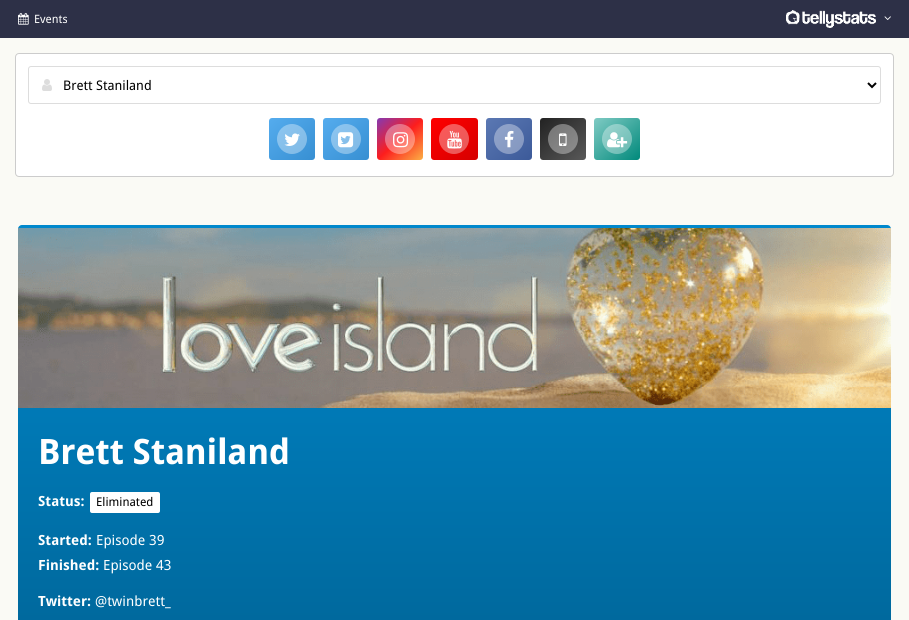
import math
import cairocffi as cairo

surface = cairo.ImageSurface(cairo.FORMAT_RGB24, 909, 620)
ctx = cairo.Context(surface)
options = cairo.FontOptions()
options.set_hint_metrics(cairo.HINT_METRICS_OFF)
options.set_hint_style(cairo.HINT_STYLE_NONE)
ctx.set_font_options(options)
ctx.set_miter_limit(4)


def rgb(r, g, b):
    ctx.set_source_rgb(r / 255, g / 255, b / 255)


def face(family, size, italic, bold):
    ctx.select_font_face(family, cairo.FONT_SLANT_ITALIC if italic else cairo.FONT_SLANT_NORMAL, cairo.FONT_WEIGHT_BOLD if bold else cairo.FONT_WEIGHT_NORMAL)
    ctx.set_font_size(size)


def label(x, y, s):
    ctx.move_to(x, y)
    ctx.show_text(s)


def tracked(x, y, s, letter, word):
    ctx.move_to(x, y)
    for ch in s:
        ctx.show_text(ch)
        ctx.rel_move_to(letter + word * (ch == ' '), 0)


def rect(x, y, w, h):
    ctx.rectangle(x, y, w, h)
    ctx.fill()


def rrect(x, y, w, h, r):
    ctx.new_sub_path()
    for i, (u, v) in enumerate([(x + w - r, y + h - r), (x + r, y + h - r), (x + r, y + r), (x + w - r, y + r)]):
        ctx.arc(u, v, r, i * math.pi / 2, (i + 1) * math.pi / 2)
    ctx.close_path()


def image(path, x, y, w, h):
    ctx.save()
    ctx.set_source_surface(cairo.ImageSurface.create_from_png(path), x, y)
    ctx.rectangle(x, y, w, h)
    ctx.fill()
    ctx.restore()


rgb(250, 250, 245)
ctx.paint()
rgb(45, 48, 71)
rect(0, 0, 909, 38)
image('image0.png', 18, 13, 11, 12)
face('Droid Sans', 11.5, 0, 0)
rgb(255, 255, 255)
label(34, 23, 'Events')
image('image1.png', 786, 10, 90, 18)
image('image2.png', 884, 16, 7, 4)
rrect(15.5, 53.5, 878, 123, 3.5)
ctx.fill_preserve()
rgb(204, 204, 204)
ctx.set_line_width(1)
ctx.stroke()
rrect(28.5, 66.5, 852, 37, 2.5)
rgb(221, 221, 221)
ctx.stroke()
image('image3.png', 42, 79, 10, 12)
ctx.new_path()
ctx.move_to(868, 83)
ctx.line_to(872, 87)
ctx.line_to(876, 83)
rgb(0, 0, 0)
ctx.set_line_width(2)
ctx.stroke()
face('Droid Sans', 13.25, 0, 0)
label(63, 90, 'Brett Staniland')
gradient = cairo.LinearGradient(271, 116, 313, 162)
gradient.add_color_stop_rgba(0, 0.333, 0.675, 0.933, 1)
gradient.add_color_stop_rgba(1, 0.216, 0.561, 0.824, 1)
ctx.set_source(gradient)
rrect(269, 118, 46, 42, 3)
ctx.fill()
ctx.set_source_rgba(1, 1, 1, 0.35)
ctx.arc(292, 139, 15, 0, 2 * math.pi)
ctx.fill()
image('image4.png', 284, 133, 16, 13)
gradient = cairo.LinearGradient(325, 116, 367, 162)
gradient.add_color_stop_rgba(0, 0.333, 0.675, 0.933, 1)
gradient.add_color_stop_rgba(1, 0.216, 0.561, 0.824, 1)
ctx.set_source(gradient)
rrect(323, 118, 46, 42, 3)
ctx.fill()
ctx.set_source_rgba(1, 1, 1, 0.35)
ctx.arc(346, 139, 15, 0, 2 * math.pi)
ctx.fill()
image('image5.png', 338, 132, 16, 16)
gradient = cairo.LinearGradient(379, 116, 421, 162)
gradient.add_color_stop_rgba(0, 0.514, 0.227, 0.706, 1)
gradient.add_color_stop_rgba(0.5, 0.992, 0.114, 0.114, 1)
gradient.add_color_stop_rgba(1, 0.988, 0.69, 0.271, 1)
ctx.set_source(gradient)
rrect(377, 118, 46, 42, 3)
ctx.fill()
ctx.set_source_rgba(1, 1, 1, 0.35)
ctx.arc(400, 139, 15, 0, 2 * math.pi)
ctx.fill()
image('image6.png', 393, 132, 16, 16)
gradient = cairo.LinearGradient(434, 116, 475, 162)
gradient.add_color_stop_rgba(0, 1, 0, 0, 1)
gradient.add_color_stop_rgba(1, 0.839, 0, 0, 1)
ctx.set_source(gradient)
rrect(431, 118, 47, 42, 3)
ctx.fill()
ctx.set_source_rgba(1, 1, 1, 0.35)
ctx.arc(454, 139, 15, 0, 2 * math.pi)
ctx.fill()
image('image7.png', 447, 130, 15, 19)
gradient = cairo.LinearGradient(488, 116, 530, 162)
gradient.add_color_stop_rgba(0, 0.357, 0.471, 0.702, 1)
gradient.add_color_stop_rgba(1, 0.235, 0.353, 0.6, 1)
ctx.set_source(gradient)
rrect(486, 118, 46, 42, 3)
ctx.fill()
ctx.set_source_rgba(1, 1, 1, 0.35)
ctx.arc(509, 139, 15, 0, 2 * math.pi)
ctx.fill()
image('image8.png', 504, 130, 10, 18)
gradient = cairo.LinearGradient(542, 116, 584, 162)
gradient.add_color_stop_rgba(0, 0.133, 0.133, 0.133, 1)
gradient.add_color_stop_rgba(1, 0.349, 0.349, 0.349, 1)
ctx.set_source(gradient)
rrect(540, 118, 46, 42, 3)
ctx.fill()
ctx.set_source_rgba(1, 1, 1, 0.35)
ctx.arc(563, 139, 15, 0, 2 * math.pi)
ctx.fill()
image('image9.png', 559, 133, 8, 13)
gradient = cairo.LinearGradient(596, 116, 638, 162)
gradient.add_color_stop_rgba(0, 0.502, 0.796, 0.769, 1)
gradient.add_color_stop_rgba(1, 0, 0.537, 0.482, 1)
ctx.set_source(gradient)
rrect(594, 118, 46, 42, 3)
ctx.fill()
ctx.set_source_rgba(1, 1, 1, 0.35)
ctx.arc(617, 139, 15, 0, 2 * math.pi)
ctx.fill()
image('image10.png', 607, 132, 21, 16)
gradient = cairo.LinearGradient(455, 225, 455, 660)
gradient.add_color_stop_rgba(0, 0, 0.533, 0.8, 1)
gradient.add_color_stop_rgba(1, 0, 0.4, 0.6, 1)
ctx.set_source(gradient)
rrect(18, 225, 873, 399, 4)
ctx.fill()
image('image11.png', 18, 228, 873, 180)
face('Droid Sans', 35, 0, 1)
rgb(255, 255, 255)
tracked(38, 464, 'Brett Staniland', -0.25, 0)
face('Droid Sans', 14, 0, 1)
label(38, 506, 'Status:')
rrect(90, 492, 70, 21, 2)
ctx.fill()
face('Droid Sans', 12, 0, 0)
rgb(0, 0, 0)
label(96, 506, 'Eliminated')
face('Droid Sans', 14, 0, 1)
rgb(255, 255, 255)
label(38, 545, 'Started:')
face('Droid Sans', 14, 0, 0)
label(96, 545, 'Episode 39')
face('Droid Sans', 14, 0, 1)
label(38, 570, 'Finished:')
face('Droid Sans', 14, 0, 0)
label(103, 570, 'Episode 43')
face('Droid Sans', 14, 0, 1)
label(38, 606, 'Twitter:')
face('Droid Sans', 14, 0, 0)
label(95, 606, '@twinbrett_')
surface.write_to_png('render.png')
